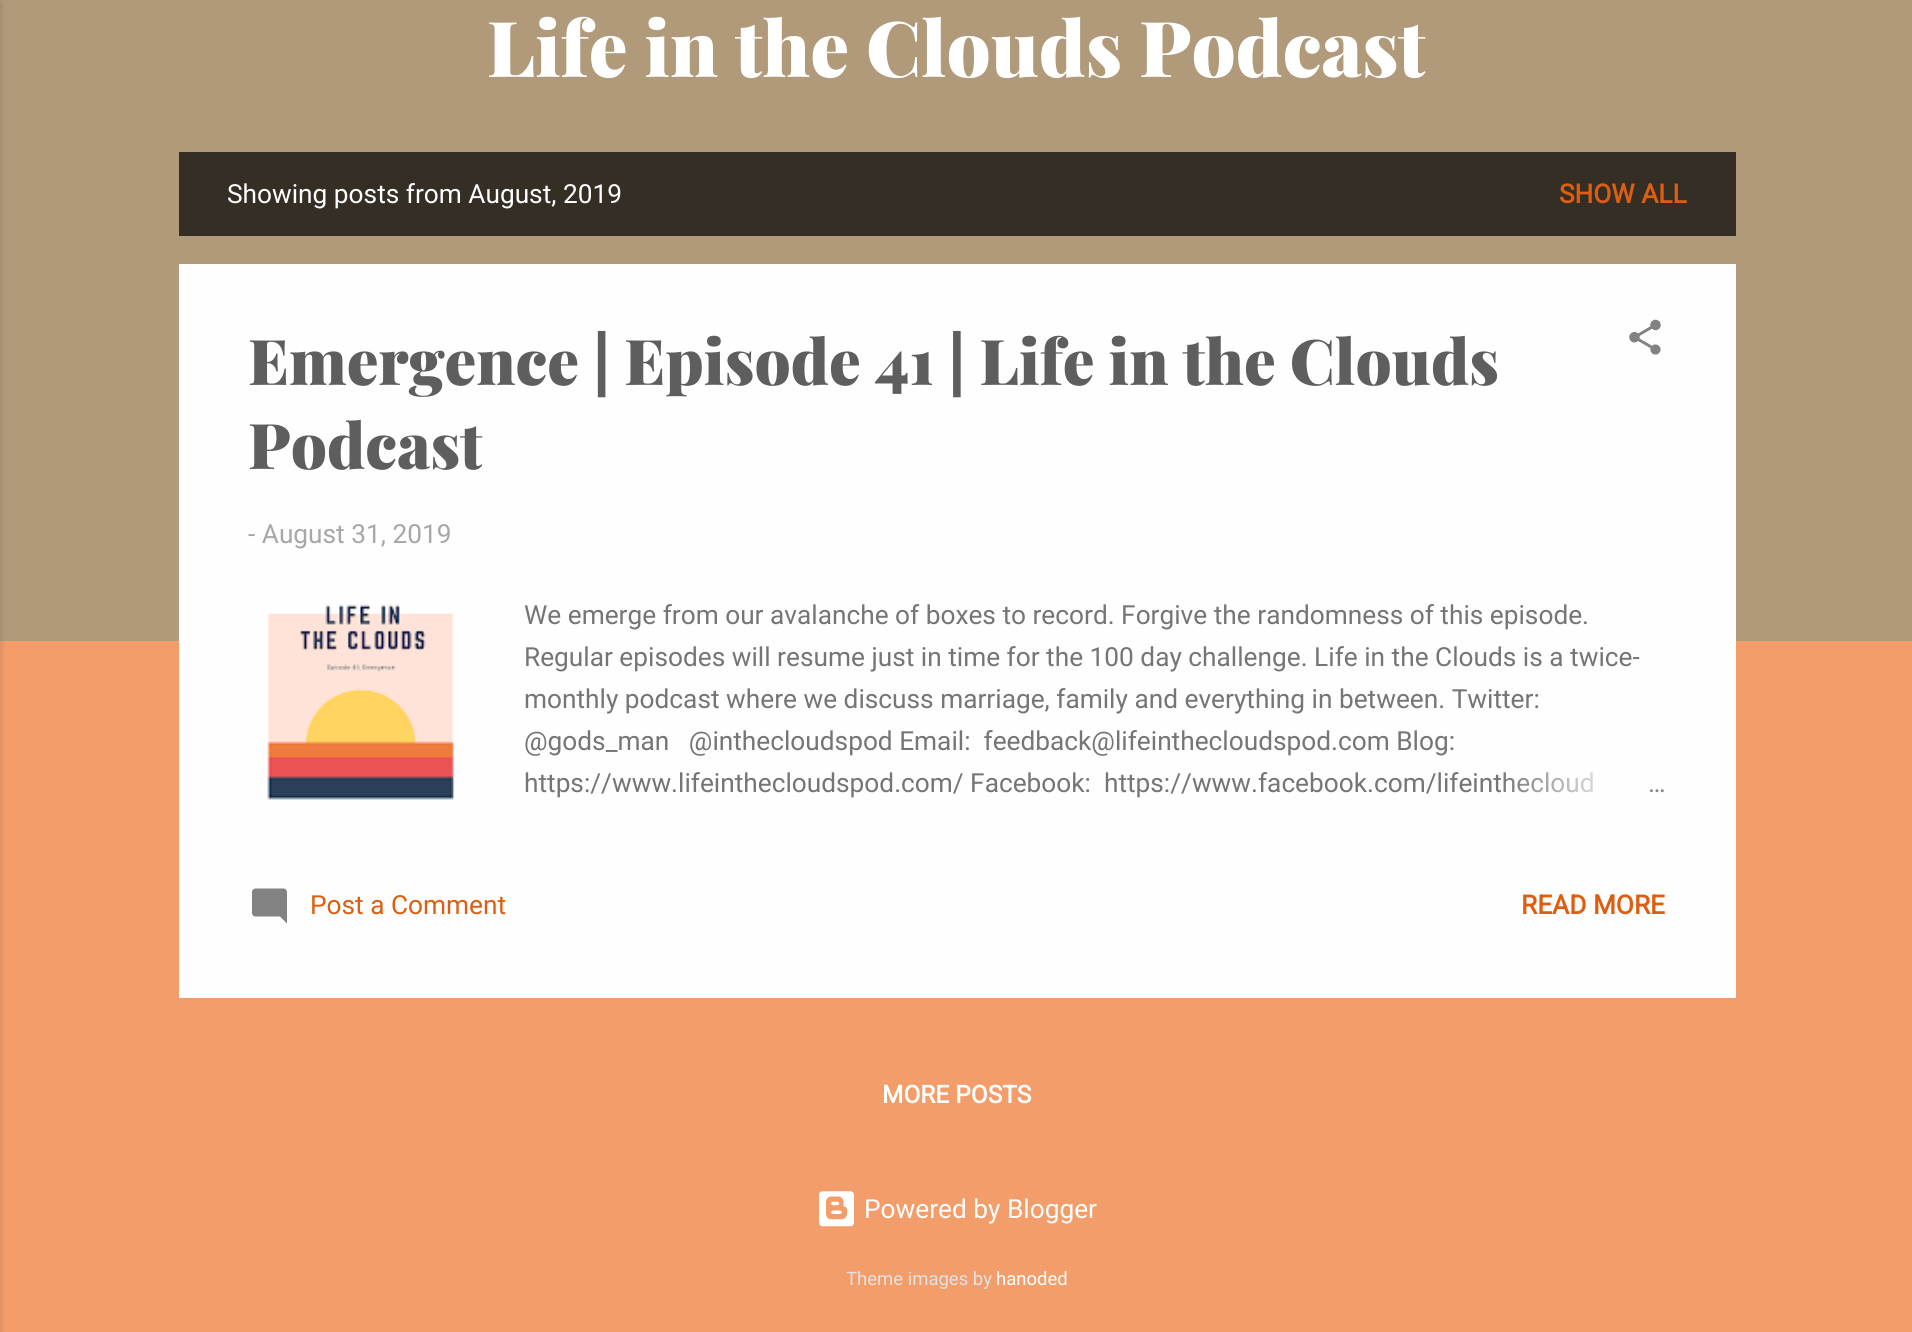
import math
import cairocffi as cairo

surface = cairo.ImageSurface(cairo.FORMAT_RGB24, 1912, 1332)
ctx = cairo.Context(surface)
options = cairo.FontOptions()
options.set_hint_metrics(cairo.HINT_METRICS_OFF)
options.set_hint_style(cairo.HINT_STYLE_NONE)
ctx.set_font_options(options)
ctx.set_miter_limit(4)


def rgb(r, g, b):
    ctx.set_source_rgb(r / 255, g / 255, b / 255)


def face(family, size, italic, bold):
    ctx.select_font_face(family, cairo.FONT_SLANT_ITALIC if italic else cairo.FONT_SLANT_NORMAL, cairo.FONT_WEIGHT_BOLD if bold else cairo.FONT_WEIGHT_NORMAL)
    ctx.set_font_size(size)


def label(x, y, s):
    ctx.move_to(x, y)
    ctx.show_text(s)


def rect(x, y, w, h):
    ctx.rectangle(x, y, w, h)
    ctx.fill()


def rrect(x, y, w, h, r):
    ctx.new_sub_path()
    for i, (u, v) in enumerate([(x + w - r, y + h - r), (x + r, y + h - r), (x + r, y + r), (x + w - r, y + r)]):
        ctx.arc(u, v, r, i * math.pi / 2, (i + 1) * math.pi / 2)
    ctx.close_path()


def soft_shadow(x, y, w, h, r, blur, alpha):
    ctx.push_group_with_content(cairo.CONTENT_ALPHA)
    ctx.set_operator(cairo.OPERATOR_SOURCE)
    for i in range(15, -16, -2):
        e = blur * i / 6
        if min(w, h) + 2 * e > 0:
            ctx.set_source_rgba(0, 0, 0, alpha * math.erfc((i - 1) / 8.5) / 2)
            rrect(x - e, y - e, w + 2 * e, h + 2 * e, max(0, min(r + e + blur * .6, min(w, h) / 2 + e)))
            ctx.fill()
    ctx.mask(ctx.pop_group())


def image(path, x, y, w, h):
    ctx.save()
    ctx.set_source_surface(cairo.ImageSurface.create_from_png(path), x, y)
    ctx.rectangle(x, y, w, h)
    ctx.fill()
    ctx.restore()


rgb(243, 157, 106)
ctx.paint()
rgb(176, 154, 122)
rect(0, 0, 1912, 641)
rgb(0, 0, 0)
soft_shadow(-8, 2, 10, 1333, 0, 2.5, 0.1)
face('Playfair Display Black', 77, 0, 0)
rgb(255, 255, 255)
label(487, 77, 'Life in the Clouds Podcast')
rgb(53, 46, 37)
rect(179, 152, 1557, 84)
face('Roboto', 26.25, 0, 0)
rgb(255, 255, 255)
label(227, 203, 'Showing posts from August, 2019')
face('Roboto', 26.25, 0, 1)
rgb(221, 94, 16)
label(1559, 203, 'SHOW ALL')
rgb(255, 254, 254)
rect(179, 264, 1557, 734)
face('Playfair Display Black', 63, 0, 0)
rgb(94, 94, 94)
label(248, 385, 'Emergence | Episode 41 | Life in the Clouds')
label(248, 469, 'Podcast')
image('image0.png', 1629, 319, 32, 36)
face('Roboto', 26.25, 0, 0)
rgb(167, 167, 167)
label(248, 543, '- August 31, 2019')
image('image1.png', 267, 604, 187, 196)
rgb(117, 117, 117)
label(524, 624, 'We emerge from our avalanche of boxes to record. Forgive the randomness of this episode.')
label(524, 666, 'Regular episodes will resume just in time for the 100 day challenge. Life in the Clouds is a twice-')
label(524, 708, 'monthly podcast where we discuss marriage, family and everything in between. Twitter:')
label(524, 750, '@gods_man   @inthecloudspod Email:  feedback@lifeinthecloudspod.com Blog:')
label(524, 792, 'https://www.lifeinthecloudspod.com/ Facebook:  https://www.facebook.com/lifeinthecloud')
gradient = cairo.LinearGradient(1666, 784, 1498, 784)
gradient.add_color_stop_rgba(0, 1, 0.996, 0.996, 1)
gradient.add_color_stop_rgba(0.2, 1, 0.996, 0.996, 1)
gradient.add_color_stop_rgba(1, 1, 0.996, 0.996, 0)
ctx.set_source(gradient)
rect(1504, 772, 89, 21)
rgb(133, 133, 133)
label(1648, 792, '…')
image('image2.png', 252, 888, 35, 36)
rgb(221, 94, 16)
label(310, 914, 'Post a Comment')
face('Roboto', 26.25, 0, 1)
label(1521, 914, 'READ MORE')
face('Roboto', 24.5, 0, 1)
rgb(255, 255, 255)
label(882, 1103, 'MORE POSTS')
image('image3.png', 819, 1191, 35, 36)
face('Roboto', 26.25, 0, 0)
label(864, 1218, 'Powered by Blogger')
face('Roboto', 18.5, 0, 0)
rgb(226, 226, 226)
label(846, 1285, 'Theme images by')
rgb(255, 255, 255)
label(996, 1285, 'hanoded')
surface.write_to_png('render.png')
